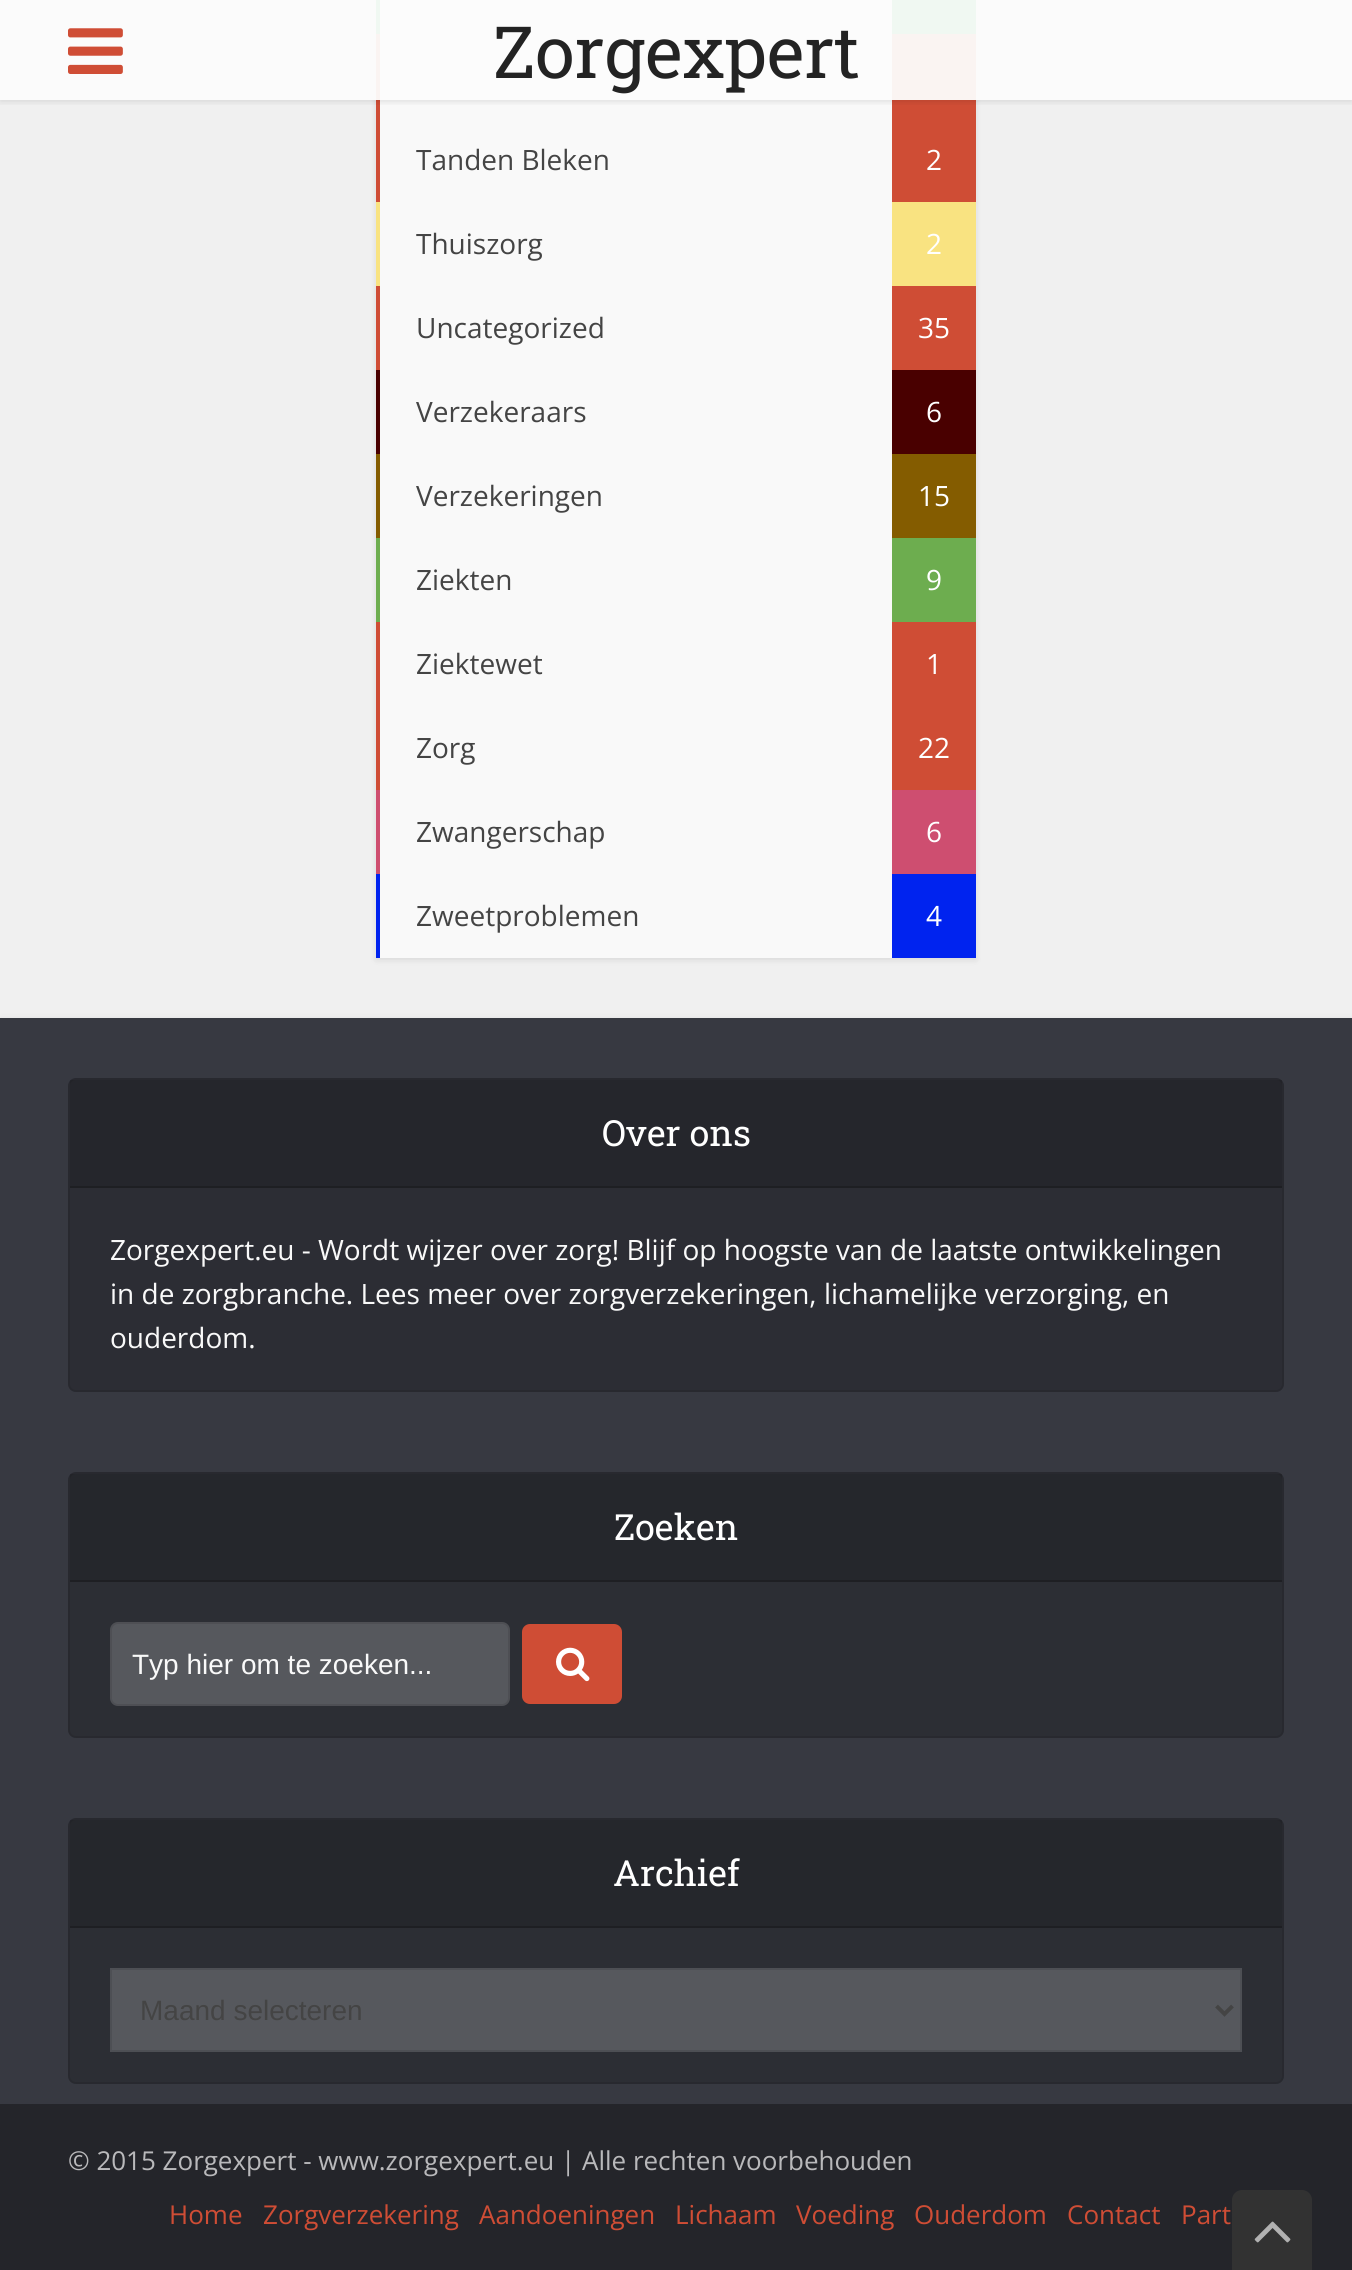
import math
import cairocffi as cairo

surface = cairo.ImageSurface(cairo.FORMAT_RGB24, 1352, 2270)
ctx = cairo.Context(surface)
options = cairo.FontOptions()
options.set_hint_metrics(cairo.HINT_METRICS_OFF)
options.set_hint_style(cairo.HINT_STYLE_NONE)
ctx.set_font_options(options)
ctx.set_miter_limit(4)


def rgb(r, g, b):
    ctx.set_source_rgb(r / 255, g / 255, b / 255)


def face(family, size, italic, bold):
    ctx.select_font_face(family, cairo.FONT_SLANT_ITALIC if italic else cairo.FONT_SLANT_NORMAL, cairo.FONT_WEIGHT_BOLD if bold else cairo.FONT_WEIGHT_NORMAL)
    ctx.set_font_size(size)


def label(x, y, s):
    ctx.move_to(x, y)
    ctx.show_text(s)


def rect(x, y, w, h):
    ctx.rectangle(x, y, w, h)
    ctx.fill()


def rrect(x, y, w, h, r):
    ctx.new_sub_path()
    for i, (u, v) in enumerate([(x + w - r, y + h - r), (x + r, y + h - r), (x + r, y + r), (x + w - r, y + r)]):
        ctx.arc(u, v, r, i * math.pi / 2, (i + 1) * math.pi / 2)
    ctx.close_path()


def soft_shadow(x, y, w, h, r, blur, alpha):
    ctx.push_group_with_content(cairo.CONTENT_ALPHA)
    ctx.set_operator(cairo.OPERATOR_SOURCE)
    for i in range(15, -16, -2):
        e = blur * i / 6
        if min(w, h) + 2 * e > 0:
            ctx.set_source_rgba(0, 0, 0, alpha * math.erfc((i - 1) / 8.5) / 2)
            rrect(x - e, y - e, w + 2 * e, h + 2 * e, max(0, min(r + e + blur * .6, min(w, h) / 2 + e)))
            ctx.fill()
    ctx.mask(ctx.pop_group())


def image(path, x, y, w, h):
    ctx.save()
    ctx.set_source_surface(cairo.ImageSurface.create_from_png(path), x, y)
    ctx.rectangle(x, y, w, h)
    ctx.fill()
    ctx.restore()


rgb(240, 240, 240)
ctx.paint()
rgb(0, 0, 0)
soft_shadow(376, -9, 600, 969, 0, 3, 0.1)
rgb(249, 249, 249)
rect(380, 0, 512, 958)
rgb(0, 170, 51)
rect(376, 0, 4, 34)
rect(892, 0, 84, 34)
rgb(207, 77, 53)
rect(376, 34, 4, 168)
rect(892, 34, 84, 168)
ctx.save()
ctx.rectangle(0, 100, 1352, 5)
ctx.clip()
rgb(0, 0, 0)
soft_shadow(0, 2, 1352, 100, 0, 3, 0.1)
ctx.restore()
ctx.set_source_rgba(0.988, 0.988, 0.988, 0.95)
rect(0, 0, 1352, 100)
image('image0.png', 68, 28, 55, 46)
face('Roboto Slab', 72, 0, 0)
rgb(35, 35, 35)
label(493, 78, 'Zorgexpert')
face('Open Sans', 28, 0, 0)
rgb(68, 68, 68)
label(416, 170, 'Tanden Bleken')
rgb(255, 255, 255)
label(926, 170, '2')
rgb(249, 227, 129)
rect(376, 202, 4, 84)
rgb(68, 68, 68)
label(416, 254, 'Thuiszorg')
rgb(249, 227, 129)
rect(892, 202, 84, 84)
rgb(255, 255, 255)
label(926, 254, '2')
rgb(207, 77, 53)
rect(376, 286, 4, 84)
rgb(68, 68, 68)
label(416, 338, 'Uncategorized')
rgb(207, 77, 53)
rect(892, 286, 84, 84)
rgb(255, 255, 255)
label(918, 338, '35')
rgb(73, 0, 0)
rect(376, 370, 4, 84)
rgb(68, 68, 68)
label(416, 422, 'Verzekeraars')
rgb(73, 0, 0)
rect(892, 370, 84, 84)
rgb(255, 255, 255)
label(926, 422, '6')
rgb(132, 92, 0)
rect(376, 454, 4, 84)
rgb(68, 68, 68)
label(416, 506, 'Verzekeringen')
rgb(132, 92, 0)
rect(892, 454, 84, 84)
rgb(255, 255, 255)
label(918, 506, '15')
rgb(109, 173, 79)
rect(376, 538, 4, 84)
rgb(68, 68, 68)
label(416, 590, 'Ziekten')
rgb(109, 173, 79)
rect(892, 538, 84, 84)
rgb(255, 255, 255)
label(926, 590, '9')
rgb(207, 77, 53)
rect(376, 622, 4, 168)
rgb(68, 68, 68)
label(416, 674, 'Ziektewet')
rgb(207, 77, 53)
rect(892, 622, 84, 168)
rgb(255, 255, 255)
label(926, 674, '1')
rgb(68, 68, 68)
label(416, 758, 'Zorg')
rgb(255, 255, 255)
label(918, 758, '22')
rgb(206, 78, 112)
rect(376, 790, 4, 84)
rgb(68, 68, 68)
label(416, 842, 'Zwangerschap')
rgb(206, 78, 112)
rect(892, 790, 84, 84)
rgb(255, 255, 255)
label(926, 842, '6')
rgb(0, 35, 239)
rect(376, 874, 4, 84)
rgb(68, 68, 68)
label(416, 926, 'Zweetproblemen')
rgb(0, 35, 239)
rect(892, 874, 84, 84)
rgb(255, 255, 255)
label(926, 926, '4')
rgb(0, 0, 0)
soft_shadow(0, 1022, 1352, 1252, 0, 4, 0.2)
rgb(55, 57, 65)
rect(0, 1018, 1352, 1086)
rgb(44, 45, 52)
rrect(68, 1078, 1216, 314, 8)
ctx.fill()
rrect(69, 1079, 1214, 312, 7)
ctx.set_source_rgba(0, 0, 0, 0.1)
ctx.stroke()
ctx.set_source_rgba(0, 0, 0, 0.15)
rect(70, 1080, 1212, 106)
rgb(30, 31, 35)
rect(70, 1186, 1212, 2)
face('Roboto Slab', 36, 0, 0)
rgb(255, 255, 255)
label(602, 1146, 'Over ons')
face('Open Sans', 28, 0, 0)
rgb(249, 249, 249)
label(110, 1260, 'Zorgexpert.eu - Wordt wijzer over zorg! Blijf op hoogste van de laatste ontwikkelingen')
label(110, 1304, 'in de zorgbranche. Lees meer over zorgverzekeringen, lichamelijke verzorging, en')
label(110, 1348, 'ouderdom.')
rgb(44, 46, 52)
rrect(68, 1472, 1216, 266, 8)
ctx.fill()
rrect(69, 1473, 1214, 264, 7)
ctx.set_source_rgba(0, 0, 0, 0.1)
ctx.stroke()
ctx.set_source_rgba(0, 0, 0, 0.15)
rect(70, 1474, 1212, 106)
rgb(30, 31, 35)
rect(70, 1580, 1212, 2)
face('Roboto Slab', 36, 0, 0)
rgb(255, 255, 255)
label(614, 1540, 'Zoeken')
rgb(86, 88, 93)
rrect(110, 1622, 400, 84, 8)
ctx.fill()
rrect(111, 1623, 398, 82, 7)
ctx.set_source_rgba(0, 0, 0, 0.1)
ctx.stroke()
face('Liberation Sans', 28, 0, 0)
rgb(249, 249, 249)
label(132, 1674, 'Typ hier om te zoeken...')
rgb(207, 77, 53)
rrect(522, 1624, 100, 80, 8)
ctx.fill()
image('image1.png', 556, 1647, 34, 35)
rgb(44, 46, 52)
rrect(68, 1818, 1216, 266, 8)
ctx.fill()
rrect(69, 1819, 1214, 264, 7)
ctx.set_source_rgba(0, 0, 0, 0.1)
ctx.stroke()
ctx.set_source_rgba(0, 0, 0, 0.15)
rect(70, 1820, 1212, 106)
rgb(30, 31, 35)
rect(70, 1926, 1212, 2)
face('Roboto Slab', 36, 0, 0)
rgb(255, 255, 255)
label(613, 1886, 'Archief')
rgb(86, 88, 93)
ctx.rectangle(111, 1969, 1130, 82)
ctx.fill_preserve()
rgb(77, 79, 84)
ctx.stroke()
ctx.new_path()
ctx.move_to(1216.5, 2006)
ctx.line_to(1224.5, 2014)
ctx.line_to(1232.5, 2006)
rgb(68, 68, 68)
ctx.set_line_width(4)
ctx.stroke()
face('Liberation Sans', 28, 0, 0)
label(140, 2020, 'Maand selecteren')
rgb(36, 37, 42)
rect(0, 2104, 1352, 166)
face('Open Sans', 26, 0, 0)
rgb(185, 185, 187)
label(68, 2170, '© 2015 Zorgexpert - www.zorgexpert.eu | Alle rechten voorbehouden')
rgb(207, 77, 53)
label(169, 2224, 'Home')
label(263, 2224, 'Zorgverzekering')
label(479, 2224, 'Aandoeningen')
label(675, 2224, 'Lichaam')
label(796, 2224, 'Voeding')
label(914, 2224, 'Ouderdom')
label(1067, 2224, 'Contact')
label(1181, 2224, 'Part')
rgb(50, 50, 50)
ctx.new_path()
ctx.move_to(1242, 2190)
ctx.line_to(1302, 2190)
ctx.curve_to(1307.5, 2190, 1312, 2194.5, 1312, 2200)
ctx.line_to(1312, 2270)
ctx.line_to(1232, 2270)
ctx.line_to(1232, 2200)
ctx.curve_to(1232, 2194.5, 1236.5, 2190, 1242, 2190)
ctx.close_path()
ctx.fill()
image('image2.png', 1254, 2221, 37, 22)
surface.write_to_png('render.png')
